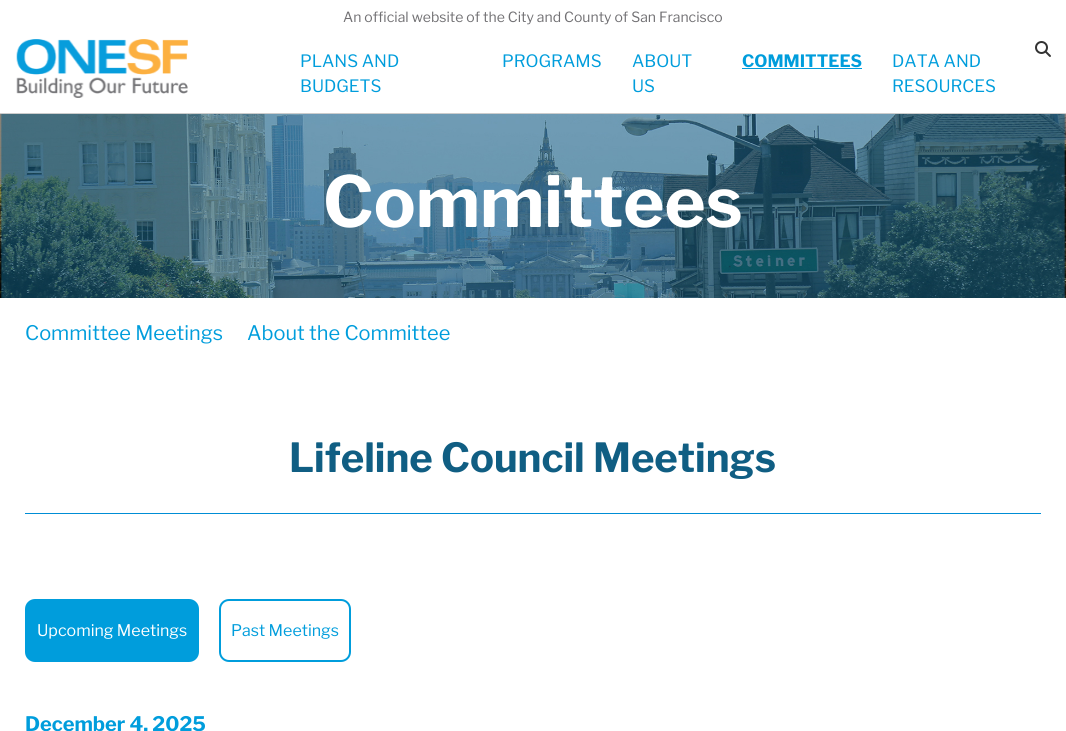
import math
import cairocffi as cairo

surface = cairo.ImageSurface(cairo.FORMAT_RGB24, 1066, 731)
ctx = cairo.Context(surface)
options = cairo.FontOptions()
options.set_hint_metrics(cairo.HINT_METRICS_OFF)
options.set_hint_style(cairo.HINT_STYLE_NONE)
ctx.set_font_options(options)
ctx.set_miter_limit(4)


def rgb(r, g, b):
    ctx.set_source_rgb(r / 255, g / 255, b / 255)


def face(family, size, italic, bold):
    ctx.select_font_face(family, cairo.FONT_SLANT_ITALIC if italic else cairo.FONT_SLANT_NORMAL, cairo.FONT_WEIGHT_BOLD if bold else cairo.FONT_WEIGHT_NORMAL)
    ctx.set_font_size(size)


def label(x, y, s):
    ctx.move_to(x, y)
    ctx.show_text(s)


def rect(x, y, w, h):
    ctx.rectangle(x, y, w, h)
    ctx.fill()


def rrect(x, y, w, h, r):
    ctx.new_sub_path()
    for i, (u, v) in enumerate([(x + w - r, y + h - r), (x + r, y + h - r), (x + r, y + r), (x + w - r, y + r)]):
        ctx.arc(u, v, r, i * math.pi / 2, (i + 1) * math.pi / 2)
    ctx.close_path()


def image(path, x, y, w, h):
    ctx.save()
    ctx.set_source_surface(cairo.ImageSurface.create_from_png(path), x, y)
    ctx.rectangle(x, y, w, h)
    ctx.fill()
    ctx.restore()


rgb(255, 255, 255)
ctx.paint()
face('Libre Franklin', 14, 0, 0)
rgb(113, 112, 115)
label(343, 22, 'An official website of the City and County of San Francisco')
rgb(204, 204, 204)
rect(0, 113, 1066, 1)
image('image0.png', 16, 39, 172, 59)
image('image1.png', 1035, 41, 16, 16)
face('Libre Franklin', 17, 0, 0)
rgb(0, 157, 220)
label(300, 67, 'PLANS AND')
label(300, 92, 'BUDGETS')
label(502, 67, 'PROGRAMS')
label(632, 67, 'ABOUT')
label(632, 92, 'US')
face('Libre Franklin', 17, 0, 1)
label(742, 67, 'COMMITTEES')
rect(742, 68, 120, 1)
face('Libre Franklin', 17, 0, 0)
label(892, 67, 'DATA AND')
label(892, 92, 'RESOURCES')
image('image2.png', 0, 114, 1066, 184)
face('Libre Franklin', 70, 0, 1)
rgb(255, 255, 255)
label(323, 227, 'Committees')
face('Libre Franklin', 20, 0, 0)
rgb(0, 157, 220)
label(25, 340, 'Committee Meetings')
label(247, 340, 'About the Committee')
rgb(0, 141, 213)
rect(25, 513, 1016, 1)
face('Libre Franklin', 40, 0, 1)
rgb(16, 94, 131)
label(289, 472, 'Lifeline Council Meetings')
rgb(0, 157, 220)
rrect(26, 600, 172, 61, 9)
ctx.fill_preserve()
ctx.stroke()
face('Libre Franklin', 16, 0, 0)
rgb(255, 255, 255)
label(37, 636, 'Upcoming Meetings')
rrect(220, 600, 130, 61, 9)
rgb(0, 157, 220)
ctx.stroke()
label(231, 636, 'Past Meetings')
face('Libre Franklin', 20, 0, 1)
label(25, 731, 'December 4, 2025')
surface.write_to_png('render.png')
